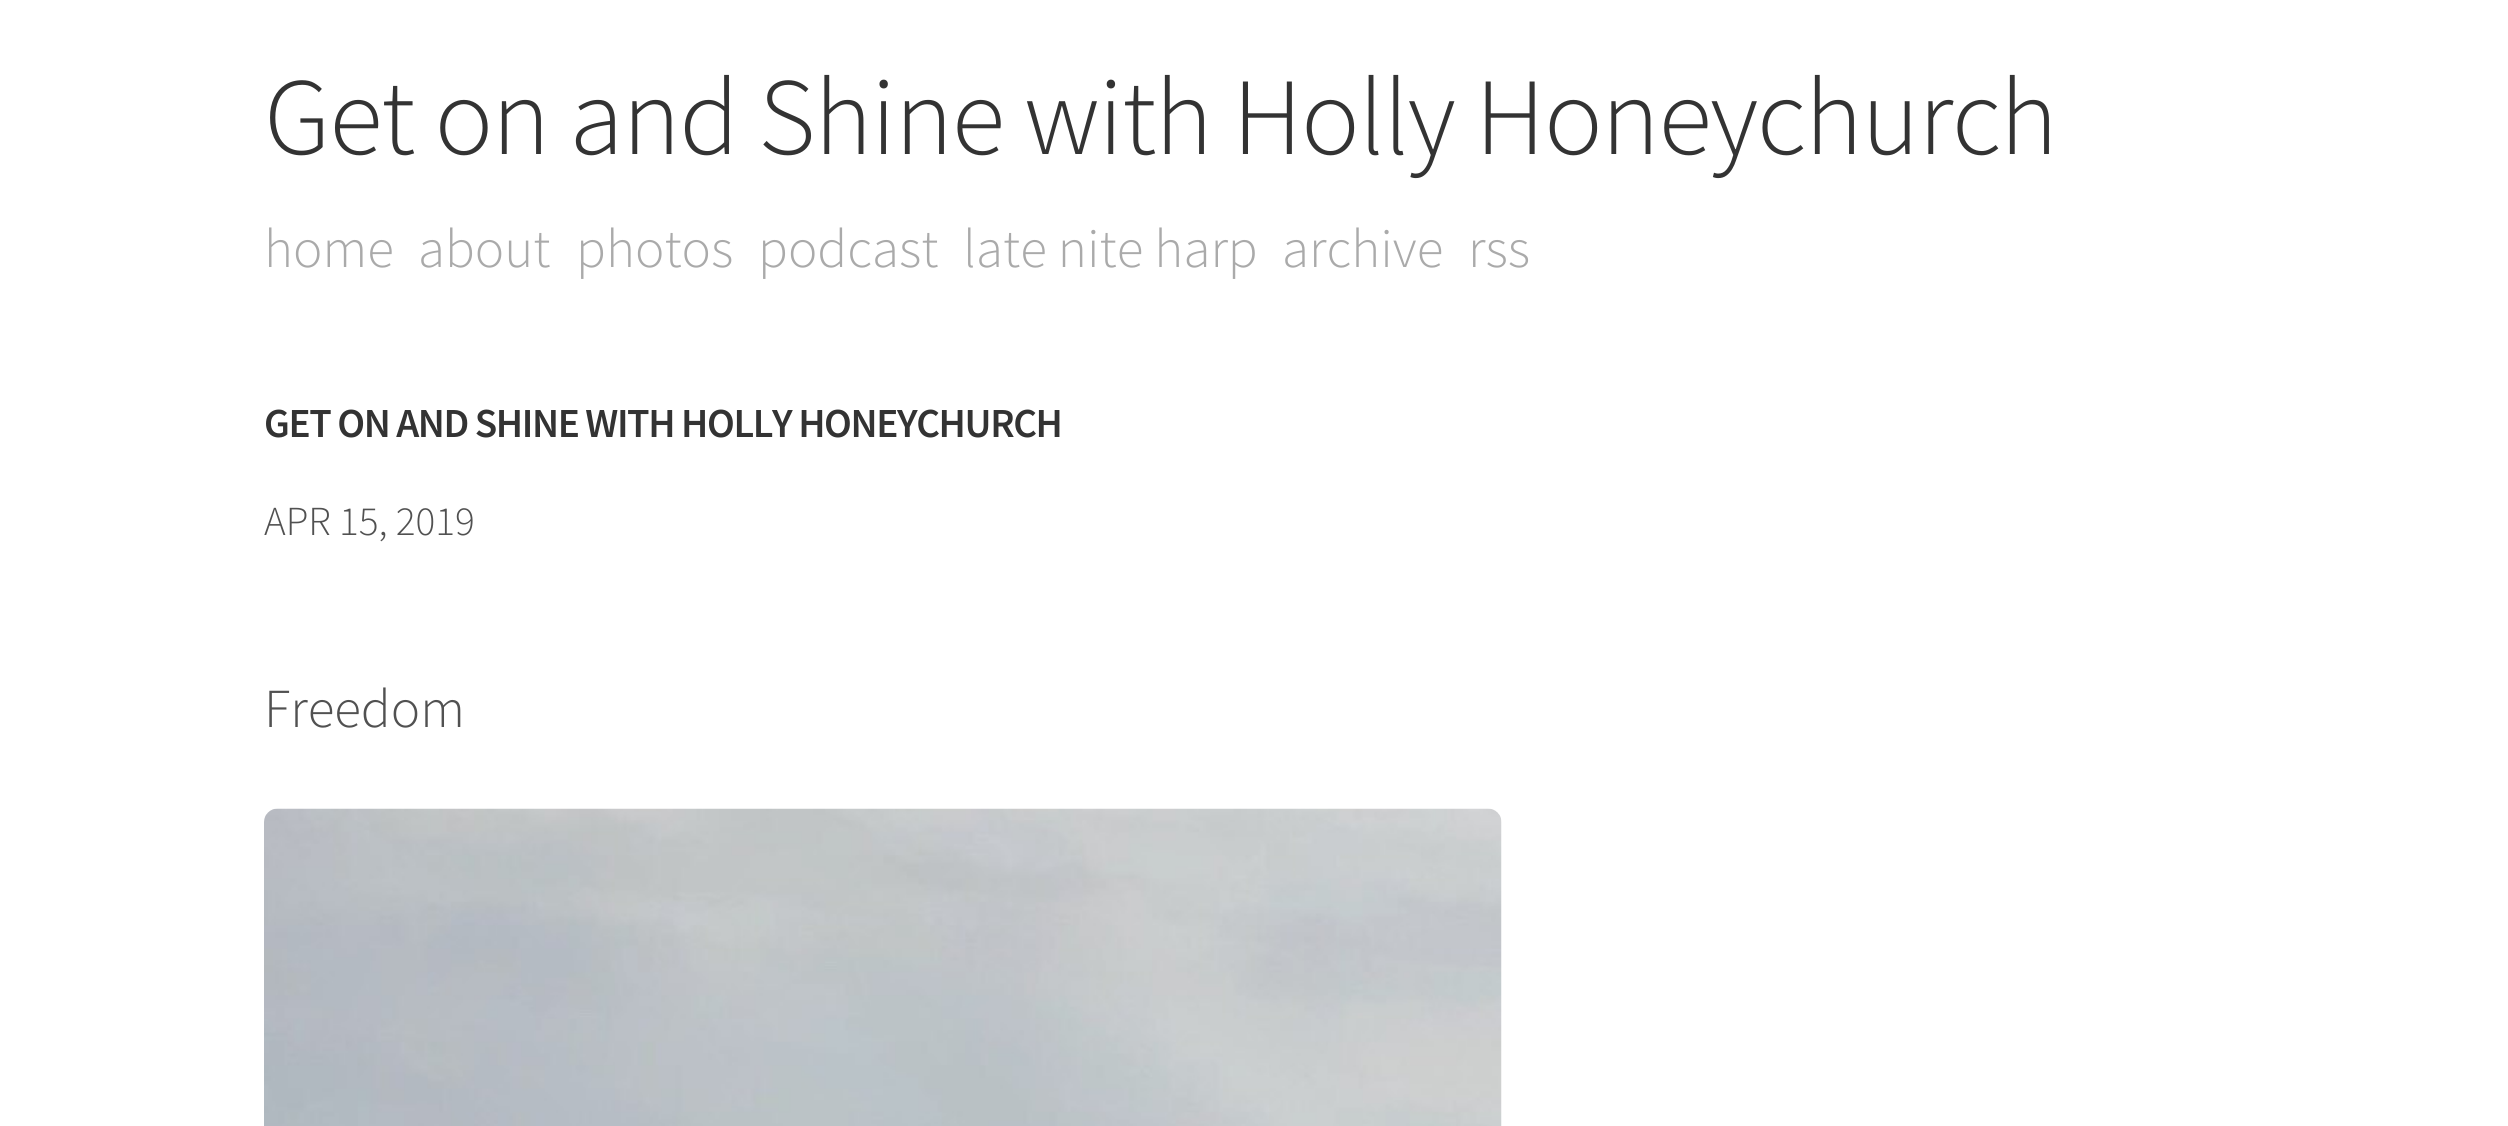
import math
import cairocffi as cairo

surface = cairo.ImageSurface(cairo.FORMAT_RGB24, 2508, 1126)
ctx = cairo.Context(surface)
options = cairo.FontOptions()
options.set_hint_metrics(cairo.HINT_METRICS_OFF)
options.set_hint_style(cairo.HINT_STYLE_NONE)
ctx.set_font_options(options)
ctx.set_miter_limit(4)


def rgb(r, g, b):
    ctx.set_source_rgb(r / 255, g / 255, b / 255)


def face(family, size, italic, bold):
    ctx.select_font_face(family, cairo.FONT_SLANT_ITALIC if italic else cairo.FONT_SLANT_NORMAL, cairo.FONT_WEIGHT_BOLD if bold else cairo.FONT_WEIGHT_NORMAL)
    ctx.set_font_size(size)


def label(x, y, s):
    ctx.move_to(x, y)
    ctx.show_text(s)


def tracked(x, y, s, letter, word):
    ctx.move_to(x, y)
    for ch in s:
        ctx.show_text(ch)
        ctx.rel_move_to(letter + word * (ch == ' '), 0)


def image(path, x, y, w, h):
    ctx.save()
    ctx.set_source_surface(cairo.ImageSurface.create_from_png(path), x, y)
    ctx.rectangle(x, y, w, h)
    ctx.fill()
    ctx.restore()


rgb(255, 255, 255)
ctx.paint()
face('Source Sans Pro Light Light', 110, 0, 0)
rgb(51, 51, 51)
tracked(264, 154, 'Get on and Shine with Holly Honeychurch', -1.4, 0)
face('Source Sans Pro Light Light', 55, 0, 0)
rgb(170, 170, 170)
label(264, 267, 'home')
label(418, 267, 'about')
label(576, 267, 'photos')
label(758, 267, 'podcast')
label(963, 267, 'late nite harp')
label(1282, 267, 'archive')
label(1468, 267, 'rss')
face('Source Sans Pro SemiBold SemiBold', 41.25, 0, 0)
rgb(51, 51, 51)
tracked(264, 437, 'GET ON AND SHINE WITH HOLLY HONEYCHURCH', -1.4, 0)
face('Source Sans Pro Light Light', 41.25, 0, 0)
rgb(81, 81, 81)
label(264, 535, 'APR 15, 2019')
face('Source Sans Pro Light Light', 55, 0, 0)
label(264, 727, 'Freedom')
image('image0.png', 264, 808, 1238, 318)
surface.write_to_png('render.png')
